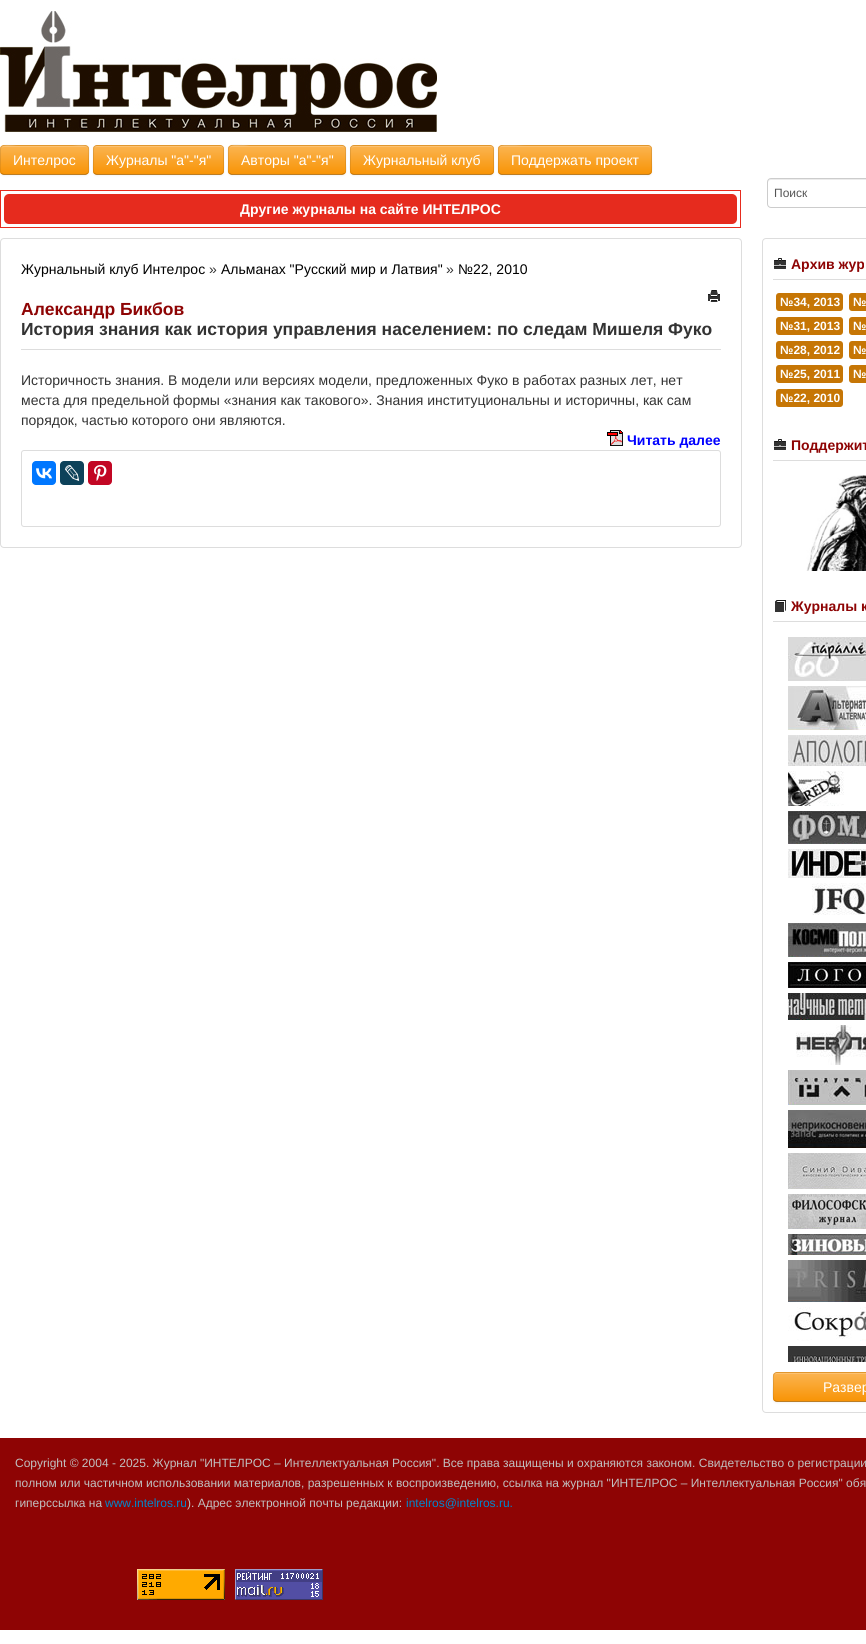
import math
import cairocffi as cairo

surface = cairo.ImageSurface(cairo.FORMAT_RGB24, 866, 1644)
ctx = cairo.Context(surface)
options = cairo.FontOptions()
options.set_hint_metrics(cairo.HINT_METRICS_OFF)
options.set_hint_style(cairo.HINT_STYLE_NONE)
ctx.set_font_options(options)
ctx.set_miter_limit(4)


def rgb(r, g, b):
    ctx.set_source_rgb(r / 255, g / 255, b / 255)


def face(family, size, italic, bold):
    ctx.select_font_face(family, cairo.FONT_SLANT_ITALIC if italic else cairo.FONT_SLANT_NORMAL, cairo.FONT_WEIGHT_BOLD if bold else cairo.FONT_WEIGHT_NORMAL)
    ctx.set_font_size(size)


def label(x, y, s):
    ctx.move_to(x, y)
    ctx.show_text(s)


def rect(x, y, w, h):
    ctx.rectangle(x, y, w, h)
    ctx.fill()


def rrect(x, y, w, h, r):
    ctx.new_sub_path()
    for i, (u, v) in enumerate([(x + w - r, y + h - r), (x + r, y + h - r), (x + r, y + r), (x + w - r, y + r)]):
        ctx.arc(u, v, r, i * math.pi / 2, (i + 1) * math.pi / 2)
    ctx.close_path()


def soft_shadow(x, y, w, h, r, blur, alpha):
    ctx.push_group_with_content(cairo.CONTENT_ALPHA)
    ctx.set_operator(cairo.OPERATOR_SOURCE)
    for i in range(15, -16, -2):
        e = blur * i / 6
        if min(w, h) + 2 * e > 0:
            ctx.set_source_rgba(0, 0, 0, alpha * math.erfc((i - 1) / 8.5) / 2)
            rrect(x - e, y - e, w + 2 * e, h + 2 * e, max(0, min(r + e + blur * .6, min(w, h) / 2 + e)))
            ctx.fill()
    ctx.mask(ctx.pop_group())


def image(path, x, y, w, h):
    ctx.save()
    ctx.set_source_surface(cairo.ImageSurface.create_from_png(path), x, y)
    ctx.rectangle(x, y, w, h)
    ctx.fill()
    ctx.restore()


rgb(255, 255, 255)
ctx.paint()
image('image0.png', 0, 11, 437, 121)
rgb(0, 0, 0)
soft_shadow(0, 146, 89, 30, 4, 1, 0.05)
rgb(250, 167, 50)
rrect(0, 145, 89, 30, 4)
ctx.fill()
ctx.save()
rrect(0, 145, 89, 30, 4)
ctx.clip()
gradient = cairo.LinearGradient(45, 146, 45, 174)
gradient.add_color_stop_rgba(0, 0.984, 0.706, 0.314, 1)
gradient.add_color_stop_rgba(1, 0.973, 0.58, 0.024, 1)
ctx.set_source(gradient)
rect(0, 146, 89, 28)
ctx.restore()
ctx.set_source_rgba(1, 1, 1, 0.2)
ctx.new_path()
ctx.move_to(4, 147)
ctx.line_to(85, 147)
ctx.curve_to(87, 147, 88, 148, 88, 150)
ctx.curve_to(88, 142, 75, 146, 72, 146)
ctx.line_to(18, 146)
ctx.curve_to(14, 146, 1, 142, 1, 150)
ctx.curve_to(1, 148, 2, 147, 4, 147)
ctx.close_path()
ctx.fill()
ctx.new_path()
ctx.move_to(87.5, 173.5)
ctx.line_to(85.5, 174.5)
ctx.line_to(3.5, 174.5)
ctx.line_to(1.5, 173.5)
ctx.set_source_rgba(0, 0, 0, 0.25)
ctx.set_line_width(1)
ctx.stroke()
ctx.new_path()
ctx.move_to(1.5, 173.5)
ctx.curve_to(-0.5, 171.5, 0.5, 163, 0.5, 160)
ctx.curve_to(0.5, 142.5, -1.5, 145.5, 17.5, 145.5)
ctx.line_to(71.5, 145.5)
ctx.curve_to(92.5, 145.5, 88.5, 143, 88.5, 163.5)
ctx.curve_to(88.5, 166.5, 90, 171, 87.5, 173.5)
ctx.set_source_rgba(0, 0, 0, 0.1)
ctx.stroke()
face('Liberation Sans', 14, 0, 0)
rgb(255, 255, 255)
label(13, 165, 'Интелрос')
rgb(0, 0, 0)
soft_shadow(93, 146, 131, 30, 4, 1, 0.05)
rgb(250, 167, 50)
rrect(93, 145, 131, 30, 4)
ctx.fill()
ctx.save()
rrect(93, 145, 131, 30, 4)
ctx.clip()
gradient = cairo.LinearGradient(159, 146, 159, 174)
gradient.add_color_stop_rgba(0, 0.984, 0.706, 0.314, 1)
gradient.add_color_stop_rgba(1, 0.973, 0.58, 0.024, 1)
ctx.set_source(gradient)
rect(93, 146, 131, 28)
ctx.restore()
ctx.set_source_rgba(1, 1, 1, 0.2)
ctx.new_path()
ctx.move_to(97, 147)
ctx.line_to(220, 147)
ctx.curve_to(222, 147, 223, 148, 223, 150)
ctx.curve_to(223, 148, 223, 146, 221, 146)
ctx.line_to(97, 146)
ctx.curve_to(95, 146, 94, 148, 94, 150)
ctx.curve_to(94, 148, 95, 147, 97, 147)
ctx.close_path()
ctx.fill()
ctx.new_path()
ctx.move_to(222.5, 173.5)
ctx.curve_to(222, 174, 221, 174.5, 220, 174.5)
ctx.line_to(97, 174.5)
ctx.curve_to(96, 174.5, 95, 174, 94.5, 173.5)
ctx.set_source_rgba(0, 0, 0, 0.25)
ctx.stroke()
ctx.new_path()
ctx.move_to(94.5, 173.5)
ctx.curve_to(92.5, 171.5, 93.5, 163, 93.5, 160)
ctx.line_to(93.5, 152.5)
ctx.curve_to(93.5, 150, 93, 145.5, 97, 145.5)
ctx.line_to(220, 145.5)
ctx.curve_to(224, 145.5, 223.5, 150, 223.5, 152.5)
ctx.line_to(223.5, 160)
ctx.curve_to(223.5, 163, 224.5, 171.5, 222.5, 173.5)
ctx.set_source_rgba(0, 0, 0, 0.1)
ctx.stroke()
rgb(255, 255, 255)
label(106, 165, 'Журналы "а"-"я"')
rgb(0, 0, 0)
soft_shadow(228, 146, 118, 30, 4, 1, 0.05)
rgb(250, 167, 50)
rrect(228, 145, 118, 30, 4)
ctx.fill()
ctx.save()
rrect(228, 145, 118, 30, 4)
ctx.clip()
gradient = cairo.LinearGradient(287, 146, 287, 174)
gradient.add_color_stop_rgba(0, 0.984, 0.706, 0.314, 1)
gradient.add_color_stop_rgba(1, 0.973, 0.58, 0.024, 1)
ctx.set_source(gradient)
rect(228, 146, 118, 28)
ctx.restore()
ctx.set_source_rgba(1, 1, 1, 0.2)
ctx.new_path()
ctx.move_to(232, 147)
ctx.line_to(342, 147)
ctx.curve_to(344, 147, 345, 148, 345, 150)
ctx.curve_to(345, 148, 344, 146, 342, 146)
ctx.line_to(250, 146)
ctx.curve_to(249, 146, 229, 141, 229, 150)
ctx.curve_to(229, 148, 230, 147, 232, 147)
ctx.close_path()
ctx.fill()
ctx.new_path()
ctx.move_to(344.5, 173.5)
ctx.line_to(342, 174.5)
ctx.line_to(231.5, 174.5)
ctx.line_to(229.5, 173.5)
ctx.set_source_rgba(0, 0, 0, 0.25)
ctx.stroke()
ctx.new_path()
ctx.move_to(229.5, 173.5)
ctx.curve_to(227, 171, 228.5, 166.5, 228.5, 163.5)
ctx.curve_to(228.5, 141, 225, 145.5, 250.5, 145.5)
ctx.line_to(323.5, 145.5)
ctx.curve_to(349, 145.5, 345.5, 141, 345.5, 163.5)
ctx.curve_to(345.5, 166.5, 347, 171, 344.5, 173.5)
ctx.set_source_rgba(0, 0, 0, 0.1)
ctx.stroke()
rgb(255, 255, 255)
label(241, 165, 'Авторы "а"-"я"')
rgb(0, 0, 0)
soft_shadow(350, 146, 144, 30, 4, 1, 0.05)
rgb(250, 167, 50)
rrect(350, 145, 144, 30, 4)
ctx.fill()
ctx.save()
rrect(350, 145, 144, 30, 4)
ctx.clip()
gradient = cairo.LinearGradient(422, 146, 422, 174)
gradient.add_color_stop_rgba(0, 0.984, 0.706, 0.314, 1)
gradient.add_color_stop_rgba(1, 0.973, 0.58, 0.024, 1)
ctx.set_source(gradient)
rect(350, 146, 144, 28)
ctx.restore()
ctx.set_source_rgba(1, 1, 1, 0.2)
ctx.new_path()
ctx.move_to(354, 147)
ctx.line_to(490, 147)
ctx.curve_to(492, 147, 493, 148, 493, 150)
ctx.line_to(493, 149)
ctx.curve_to(493, 147, 492, 146, 490, 146)
ctx.line_to(354, 146)
ctx.curve_to(352, 146, 351, 147, 351, 149)
ctx.line_to(351, 150)
ctx.curve_to(351, 148, 352, 147, 354, 147)
ctx.close_path()
ctx.fill()
ctx.new_path()
ctx.move_to(492.5, 173.5)
ctx.curve_to(492, 174, 491, 174.5, 490, 174.5)
ctx.line_to(354, 174.5)
ctx.curve_to(353, 174.5, 352, 174, 351.5, 173.5)
ctx.set_source_rgba(0, 0, 0, 0.25)
ctx.stroke()
ctx.new_path()
ctx.move_to(351.5, 173.5)
ctx.curve_to(349.5, 171.5, 350.5, 163, 350.5, 160)
ctx.line_to(350.5, 152.5)
ctx.curve_to(350.5, 150, 350, 145.5, 354, 145.5)
ctx.line_to(490, 145.5)
ctx.curve_to(494, 145.5, 493.5, 150, 493.5, 152.5)
ctx.line_to(493.5, 160)
ctx.curve_to(493.5, 163, 494.5, 171.5, 492.5, 173.5)
ctx.set_source_rgba(0, 0, 0, 0.1)
ctx.stroke()
rgb(255, 255, 255)
label(363, 165, 'Журнальный клуб')
rgb(0, 0, 0)
soft_shadow(498, 146, 154, 30, 4, 1, 0.05)
rgb(250, 167, 50)
rrect(498, 145, 154, 30, 4)
ctx.fill()
ctx.save()
rrect(498, 145, 154, 30, 4)
ctx.clip()
gradient = cairo.LinearGradient(575, 146, 575, 174)
gradient.add_color_stop_rgba(0, 0.984, 0.706, 0.314, 1)
gradient.add_color_stop_rgba(1, 0.973, 0.58, 0.024, 1)
ctx.set_source(gradient)
rect(498, 146, 154, 28)
ctx.restore()
ctx.set_source_rgba(1, 1, 1, 0.2)
ctx.new_path()
ctx.move_to(502, 147)
ctx.line_to(648, 147)
ctx.curve_to(650, 147, 651, 148, 651, 150)
ctx.curve_to(651, 148, 651, 147, 649, 146)
ctx.line_to(526, 146)
ctx.curve_to(519, 146, 499, 141, 499, 150)
ctx.curve_to(499, 148, 500, 147, 502, 147)
ctx.close_path()
ctx.fill()
ctx.new_path()
ctx.move_to(650.5, 173.5)
ctx.curve_to(650, 174, 649, 174.5, 648, 174.5)
ctx.line_to(502, 174.5)
ctx.curve_to(501, 174.5, 500, 174, 499.5, 173.5)
ctx.set_source_rgba(0, 0, 0, 0.25)
ctx.stroke()
ctx.new_path()
ctx.move_to(499.5, 173.5)
ctx.curve_to(497.5, 171.5, 498.5, 163, 498.5, 160)
ctx.line_to(498.5, 152.5)
ctx.curve_to(498.5, 150, 498, 145.5, 502, 145.5)
ctx.line_to(648, 145.5)
ctx.curve_to(652, 145.5, 651.5, 150, 651.5, 152.5)
ctx.line_to(651.5, 160)
ctx.curve_to(651.5, 163, 652.5, 171.5, 650.5, 173.5)
ctx.set_source_rgba(0, 0, 0, 0.1)
ctx.stroke()
rgb(255, 255, 255)
label(511, 165, 'Поддержать проект')
rgb(236, 236, 236)
ctx.new_path()
ctx.move_to(771, 180)
ctx.line_to(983, 180)
ctx.curve_to(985, 180, 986, 181, 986, 183)
ctx.line_to(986, 182)
ctx.curve_to(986, 180, 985, 179, 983, 179)
ctx.line_to(771, 179)
ctx.curve_to(769, 179, 768, 180, 768, 182)
ctx.line_to(768, 183)
ctx.curve_to(768, 181, 769, 180, 771, 180)
ctx.close_path()
ctx.fill()
rrect(767.5, 178.5, 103, 29, 3.5)
rgb(204, 204, 204)
ctx.stroke()
face('Liberation Sans', 12, 0, 0)
rgb(85, 85, 85)
label(774, 197, 'Поиск')
ctx.rectangle(0.5, 190.5, 740, 37)
rgb(230, 43, 30)
ctx.stroke()
rrect(4, 194, 733, 30, 5)
ctx.fill()
face('Liberation Sans', 14, 0, 1)
rgb(255, 255, 255)
label(240, 214, 'Другие журналы на сайте ИНТЕЛРОС')
rrect(0.5, 238.5, 741, 309, 3.5)
rgb(221, 221, 221)
ctx.stroke()
face('Liberation Sans', 14, 0, 0)
rgb(0, 0, 0)
label(21, 274, 'Журнальный клуб Интелрос')
rgb(51, 51, 51)
label(209, 274, '»')
rgb(0, 0, 0)
label(221, 274, 'Альманах "Русский мир и Латвия"')
rgb(51, 51, 51)
label(446, 274, '»')
rgb(0, 0, 0)
label(458, 274, '№22, 2010')
rgb(221, 221, 221)
rect(21, 349, 700, 1)
image('image1.png', 708, 290, 12, 12)
face('Liberation Sans', 17.5, 0, 1)
rgb(142, 4, 4)
label(21, 315, 'Александр Бикбов')
rgb(51, 51, 51)
label(21, 335, 'История знания как история управления населением: по следам Мишеля Фуко')
face('Liberation Sans', 14, 0, 0)
label(21, 385, 'Историчность знания. В модели или версиях модели, предложенных Фуко в работах разных лет, нет')
label(21, 405, 'места для предельной формы «знания как такового». Знания институциональны и историчны, как сам')
label(21, 425, 'порядок, частью которого они являются.')
image('image2.png', 607, 430, 16, 16)
face('Liberation Sans', 14, 0, 1)
rgb(0, 0, 255)
label(627, 445, 'Читать далее')
rrect(21.5, 450.5, 699, 76, 2.5)
rgb(221, 221, 221)
ctx.stroke()
rgb(0, 119, 255)
rrect(32, 461, 24, 24, 4)
ctx.fill()
image('image3.png', 36, 468, 16, 11)
rgb(13, 66, 90)
rrect(60, 461, 24, 24, 4)
ctx.fill()
image('image4.png', 65, 465, 15, 16)
rgb(194, 7, 36)
rrect(88, 461, 24, 24, 4)
ctx.fill()
image('image5.png', 94, 465, 13, 16)
rrect(762.5, 238.5, 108, 1174, 3.5)
rgb(221, 221, 221)
ctx.stroke()
rect(773, 279, 93, 1)
image('image6.png', 774, 258, 12, 11)
rgb(142, 4, 4)
label(791, 269, 'Архив жур')
rgb(198, 118, 5)
rrect(776, 293, 67, 18, 3)
ctx.fill()
face('Liberation Sans', 12, 0, 1)
rgb(255, 255, 255)
label(780, 306, '№34, 2013')
rgb(198, 118, 5)
rrect(849, 293, 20, 18, 3)
ctx.fill()
rgb(255, 255, 255)
label(853, 306, '№')
rgb(198, 118, 5)
rrect(776, 317, 67, 18, 3)
ctx.fill()
rgb(255, 255, 255)
label(780, 330, '№31, 2013')
rgb(198, 118, 5)
rrect(849, 317, 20, 18, 3)
ctx.fill()
rgb(255, 255, 255)
label(853, 330, '№')
rgb(198, 118, 5)
rrect(776, 341, 67, 18, 3)
ctx.fill()
rgb(255, 255, 255)
label(780, 354, '№28, 2012')
rgb(198, 118, 5)
rrect(849, 341, 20, 18, 3)
ctx.fill()
rgb(255, 255, 255)
label(853, 354, '№')
rgb(198, 118, 5)
rrect(776, 365, 67, 18, 3)
ctx.fill()
rgb(255, 255, 255)
label(780, 378, '№25, 2011')
rgb(198, 118, 5)
rrect(849, 365, 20, 18, 3)
ctx.fill()
rgb(255, 255, 255)
label(853, 378, '№')
rgb(198, 118, 5)
rrect(776, 389, 67, 18, 3)
ctx.fill()
rgb(255, 255, 255)
label(780, 402, '№22, 2010')
rgb(221, 221, 221)
rect(773, 460, 93, 1)
image('image6.png', 774, 439, 12, 11)
face('Liberation Sans', 14, 0, 1)
rgb(142, 4, 4)
label(791, 450, 'Поддержит')
image('image7.png', 806, 475, 60, 96)
rgb(221, 221, 221)
rect(773, 621, 93, 1)
image('image8.png', 775, 600, 11, 12)
rgb(142, 4, 4)
label(791, 611, 'Журналы к')
image('image9.png', 788, 637, 78, 44)
image('image10.png', 788, 686, 78, 44)
image('image11.png', 788, 735, 78, 31)
image('image12.png', 788, 771, 56, 35)
image('image13.png', 788, 811, 78, 33)
image('image14.png', 788, 849, 78, 29)
image('image15.png', 812, 883, 54, 32)
image('image16.png', 788, 923, 78, 34)
image('image17.png', 788, 962, 78, 26)
image('image18.png', 788, 993, 78, 27)
image('image19.png', 796, 1025, 70, 40)
image('image20.png', 788, 1070, 78, 35)
image('image21.png', 788, 1110, 78, 38)
image('image22.png', 788, 1153, 78, 36)
image('image23.png', 788, 1194, 78, 35)
image('image24.png', 788, 1234, 78, 21)
image('image25.png', 788, 1260, 78, 42)
image('image26.png', 788, 1307, 78, 34)
image('image27.png', 788, 1346, 78, 16)
rgb(0, 0, 0)
soft_shadow(773, 1373, 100, 30, 4, 1, 0.05)
rgb(250, 167, 50)
rrect(773, 1372, 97, 30, 4)
ctx.fill()
ctx.save()
rrect(773, 1372, 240, 30, 4)
ctx.clip()
gradient = cairo.LinearGradient(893, 1373, 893, 1401)
gradient.add_color_stop_rgba(0, 0.984, 0.706, 0.314, 1)
gradient.add_color_stop_rgba(1, 0.973, 0.58, 0.024, 1)
ctx.set_source(gradient)
rect(773, 1373, 93, 28)
ctx.restore()
rgb(252, 194, 114)
ctx.new_path()
ctx.move_to(777, 1374)
ctx.line_to(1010, 1374)
ctx.line_to(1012, 1375)
ctx.line_to(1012, 1377)
ctx.curve_to(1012, 1375, 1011, 1373, 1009, 1373)
ctx.line_to(777, 1373)
ctx.curve_to(775, 1373, 774, 1375, 774, 1377)
ctx.curve_to(774, 1375, 775, 1374, 777, 1374)
ctx.close_path()
ctx.fill()
ctx.new_path()
ctx.move_to(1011.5, 1400.5)
ctx.curve_to(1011, 1401, 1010, 1401.5, 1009, 1401.5)
ctx.line_to(777, 1401.5)
ctx.curve_to(776, 1401.5, 775, 1401, 774.5, 1400.5)
ctx.set_source_rgba(0, 0, 0, 0.25)
ctx.stroke()
ctx.new_path()
ctx.move_to(774.5, 1400.5)
ctx.curve_to(772, 1398, 773.5, 1386.5, 773.5, 1383.5)
ctx.curve_to(773.5, 1380.5, 772, 1372.5, 777, 1372.5)
ctx.line_to(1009, 1372.5)
ctx.curve_to(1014, 1372.5, 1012.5, 1380.5, 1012.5, 1383.5)
ctx.curve_to(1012.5, 1386.5, 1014, 1398, 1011.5, 1400.5)
ctx.set_source_rgba(0, 0, 0, 0.1)
ctx.stroke()
face('Liberation Sans', 14, 0, 0)
rgb(255, 255, 255)
label(823, 1392, 'Развер')
rgb(142, 4, 4)
rect(0, 1438, 866, 192)
face('Liberation Sans', 12, 0, 0)
rgb(192, 192, 192)
label(15, 1467, 'Copyright © 2004 - 2025. Журнал "ИНТЕЛРОС – Интеллектуальная Россия". Все права защищены и охраняются законом. Свидетельство о регистрации')
label(15, 1487, 'полном или частичном использовании материалов, разрешенных к воспроизведению, ссылка на журнал "ИНТЕЛРОС – Интеллектуальная Россия" обя')
label(15, 1507, 'гиперссылка на')
rgb(0, 136, 204)
label(105, 1507, 'www.intelros.ru')
rgb(192, 192, 192)
label(187, 1507, '). Адрес электронной почты редакции:')
rgb(0, 136, 204)
label(406, 1507, 'intelros@intelros.ru.')
image('image28.png', 137, 1569, 88, 31)
image('image29.png', 235, 1569, 88, 31)
surface.write_to_png('render.png')
